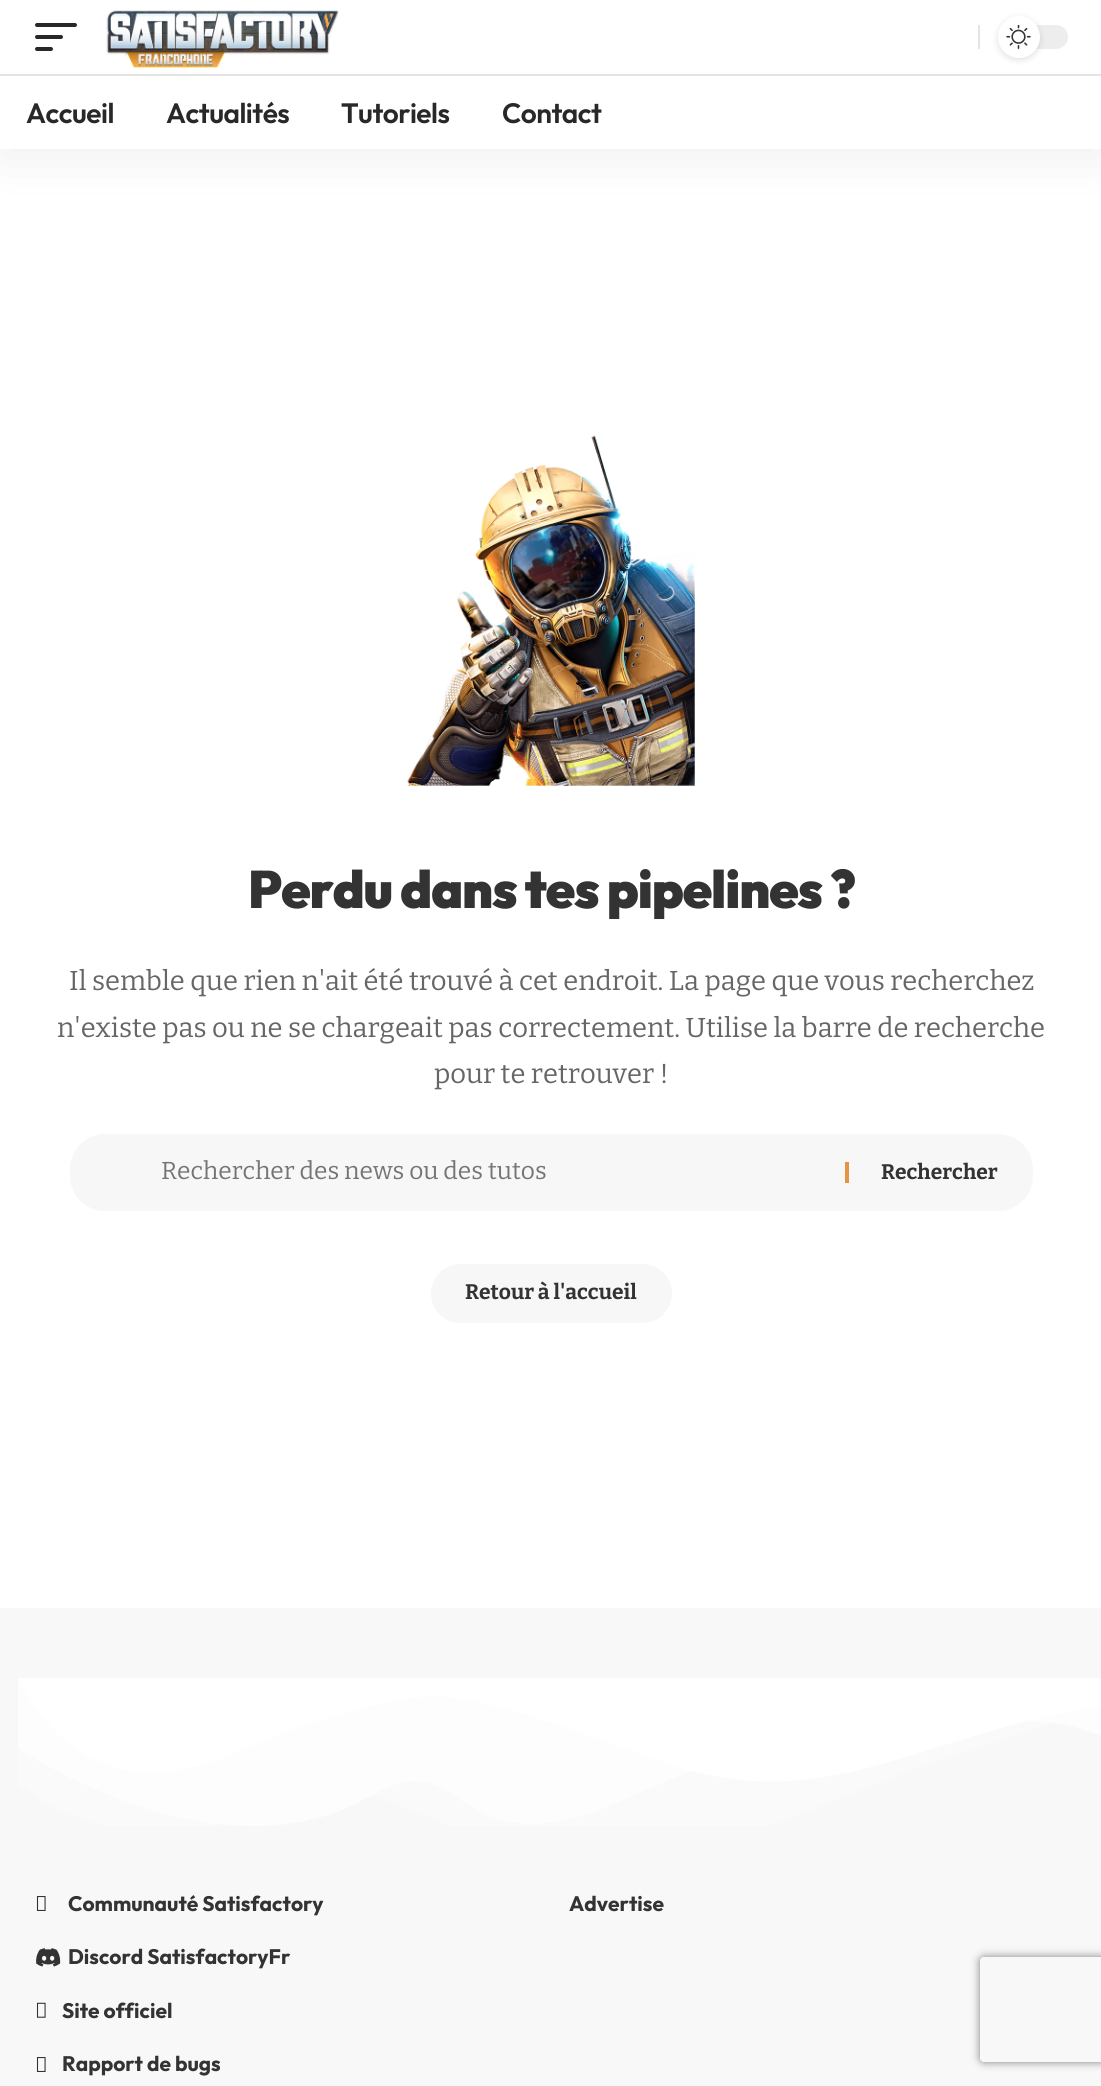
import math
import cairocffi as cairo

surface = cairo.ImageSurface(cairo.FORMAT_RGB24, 1101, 2086)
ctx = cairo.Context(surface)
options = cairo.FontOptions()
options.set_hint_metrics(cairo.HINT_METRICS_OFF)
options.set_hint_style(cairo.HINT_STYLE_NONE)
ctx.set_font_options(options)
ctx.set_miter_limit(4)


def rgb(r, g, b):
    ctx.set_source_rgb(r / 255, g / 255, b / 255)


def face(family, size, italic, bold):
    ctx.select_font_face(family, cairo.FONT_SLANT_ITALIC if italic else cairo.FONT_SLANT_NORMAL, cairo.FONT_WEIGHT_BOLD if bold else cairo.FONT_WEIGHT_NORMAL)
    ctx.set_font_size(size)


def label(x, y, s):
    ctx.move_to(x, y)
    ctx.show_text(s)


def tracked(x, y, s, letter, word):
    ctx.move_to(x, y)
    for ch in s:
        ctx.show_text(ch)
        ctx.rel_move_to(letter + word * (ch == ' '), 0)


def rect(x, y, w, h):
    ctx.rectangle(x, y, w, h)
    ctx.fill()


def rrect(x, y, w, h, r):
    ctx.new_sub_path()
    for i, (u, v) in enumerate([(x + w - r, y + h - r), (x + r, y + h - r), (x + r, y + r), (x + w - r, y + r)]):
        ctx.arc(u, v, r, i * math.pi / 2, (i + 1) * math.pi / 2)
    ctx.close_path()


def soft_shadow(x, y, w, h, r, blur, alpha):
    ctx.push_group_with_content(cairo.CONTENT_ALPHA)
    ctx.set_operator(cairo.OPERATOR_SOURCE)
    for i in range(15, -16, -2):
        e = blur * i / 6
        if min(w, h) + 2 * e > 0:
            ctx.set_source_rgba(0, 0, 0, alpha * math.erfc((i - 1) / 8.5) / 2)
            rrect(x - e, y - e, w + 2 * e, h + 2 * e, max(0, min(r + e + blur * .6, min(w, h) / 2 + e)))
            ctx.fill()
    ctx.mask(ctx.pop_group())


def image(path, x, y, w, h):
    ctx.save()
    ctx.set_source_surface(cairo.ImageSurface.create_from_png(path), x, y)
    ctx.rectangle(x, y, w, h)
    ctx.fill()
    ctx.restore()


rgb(255, 255, 255)
ctx.paint()
rgb(0, 0, 0)
soft_shadow(0, 7, 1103, 149, 0, 26, 0.07)
rgb(255, 255, 255)
rect(0, 0, 1101, 149)
rgb(40, 40, 40)
rrect(35, 23, 42, 4, 2)
ctx.fill()
rrect(35, 35, 28, 4, 2)
ctx.fill()
rrect(35, 47, 18, 4, 2)
ctx.fill()
image('image0.png', 106, 10, 233, 58)
rgb(228, 228, 228)
rect(978, 25, 2, 24)
rgb(237, 237, 237)
rrect(998, 25, 70, 24, 12)
ctx.fill()
rgb(0, 0, 0)
soft_shadow(998, 18, 42, 42, 21, 3.5, 0.12)
rgb(255, 255, 255)
ctx.arc(1019, 37, 21, 0, 2 * math.pi)
ctx.fill()
image('image1.png', 1006, 25, 25, 24)
rgb(228, 228, 228)
rect(0, 74, 1101, 2)
face('Outfit SemiBold', 28, 0, 0)
rgb(40, 40, 40)
tracked(26, 123, 'Accueil', -0.5, 0)
tracked(166, 123, 'Actualités', -0.5, 0)
tracked(341, 123, 'Tutoriels', -0.5, 0)
tracked(502, 123, 'Contact', -0.5, 0)
image('image2.png', 407, 435, 288, 351)
face('Outfit Black', 52.5, 0, 0)
rgb(51, 51, 51)
tracked(248, 908, 'Perdu dans tes pipelines ?', -1.1, 0)
face('Bitter', 27.35, 0, 0)
rgb(102, 102, 102)
label(69, 990, 'Il semble que rien n\'ait été trouvé à cet endroit. La page que vous recherchez')
label(57, 1037, 'n\'existe pas ou ne se chargeait pas correctement. Utilise la barre de recherche')
label(434, 1083, 'pour te retrouver !')
rgb(247, 247, 247)
rrect(70, 1134, 963, 77, 35)
ctx.fill()
face('Bitter', 24.5, 0, 0)
rgb(117, 117, 117)
label(161, 1179, 'Rechercher des news ou des tutos')
rgb(230, 147, 68)
rect(845, 1162, 4, 21)
face('Bitter', 21, 0, 1)
rgb(51, 51, 51)
label(881, 1179, 'Rechercher')
rgb(247, 247, 247)
rrect(431, 1264, 241, 59, 29.5)
ctx.fill()
rgb(51, 51, 51)
label(465, 1299, 'Retour à l\'accueil')
rgb(248, 248, 248)
rect(0, 1608, 1101, 478)
image('image3.png', 18, 1678, 1083, 148)
image('image4.png', 36, 1896, 10, 15)
face('Outfit', 21, 0, 1)
rgb(51, 51, 51)
label(68, 1911, 'Communauté Satisfactory')
image('image5.png', 36, 1948, 25, 19)
label(68, 1964, 'Discord SatisfactoryFr')
image('image6.png', 36, 2002, 10, 16)
label(62, 2018, 'Site officiel')
image('image4.png', 36, 2057, 10, 15)
label(62, 2071, 'Rapport de bugs')
label(569, 1911, 'Advertise')
ctx.save()
ctx.set_fill_rule(cairo.FILL_RULE_EVEN_ODD)
ctx.new_path()
ctx.move_to(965, 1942)
ctx.line_to(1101, 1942)
ctx.line_to(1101, 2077)
ctx.line_to(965, 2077)
ctx.close_path()
ctx.move_to(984, 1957)
ctx.line_to(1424, 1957)
ctx.curve_to(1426, 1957, 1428, 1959, 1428, 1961)
ctx.line_to(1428, 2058)
ctx.curve_to(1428, 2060, 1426, 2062, 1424, 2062)
ctx.line_to(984, 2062)
ctx.curve_to(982, 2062, 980, 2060, 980, 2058)
ctx.line_to(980, 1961)
ctx.curve_to(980, 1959, 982, 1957, 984, 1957)
ctx.close_path()
ctx.clip()
rgb(128, 128, 128)
soft_shadow(980, 1957, 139, 105, 4, 4.5, 1)
ctx.restore()
surface.write_to_png('render.png')
